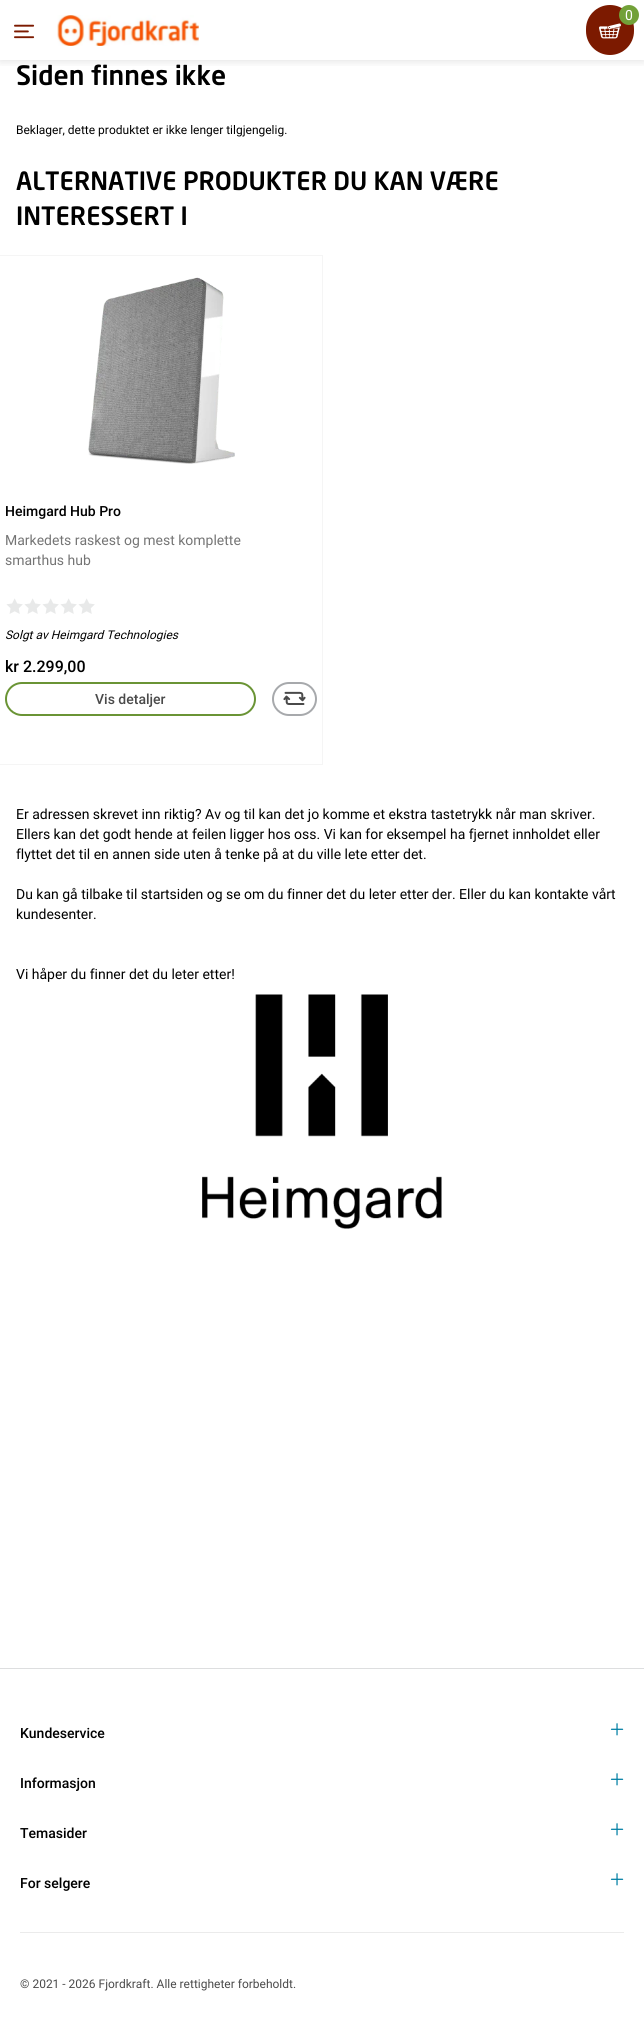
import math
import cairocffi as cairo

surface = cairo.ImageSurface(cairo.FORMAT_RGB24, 644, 2033)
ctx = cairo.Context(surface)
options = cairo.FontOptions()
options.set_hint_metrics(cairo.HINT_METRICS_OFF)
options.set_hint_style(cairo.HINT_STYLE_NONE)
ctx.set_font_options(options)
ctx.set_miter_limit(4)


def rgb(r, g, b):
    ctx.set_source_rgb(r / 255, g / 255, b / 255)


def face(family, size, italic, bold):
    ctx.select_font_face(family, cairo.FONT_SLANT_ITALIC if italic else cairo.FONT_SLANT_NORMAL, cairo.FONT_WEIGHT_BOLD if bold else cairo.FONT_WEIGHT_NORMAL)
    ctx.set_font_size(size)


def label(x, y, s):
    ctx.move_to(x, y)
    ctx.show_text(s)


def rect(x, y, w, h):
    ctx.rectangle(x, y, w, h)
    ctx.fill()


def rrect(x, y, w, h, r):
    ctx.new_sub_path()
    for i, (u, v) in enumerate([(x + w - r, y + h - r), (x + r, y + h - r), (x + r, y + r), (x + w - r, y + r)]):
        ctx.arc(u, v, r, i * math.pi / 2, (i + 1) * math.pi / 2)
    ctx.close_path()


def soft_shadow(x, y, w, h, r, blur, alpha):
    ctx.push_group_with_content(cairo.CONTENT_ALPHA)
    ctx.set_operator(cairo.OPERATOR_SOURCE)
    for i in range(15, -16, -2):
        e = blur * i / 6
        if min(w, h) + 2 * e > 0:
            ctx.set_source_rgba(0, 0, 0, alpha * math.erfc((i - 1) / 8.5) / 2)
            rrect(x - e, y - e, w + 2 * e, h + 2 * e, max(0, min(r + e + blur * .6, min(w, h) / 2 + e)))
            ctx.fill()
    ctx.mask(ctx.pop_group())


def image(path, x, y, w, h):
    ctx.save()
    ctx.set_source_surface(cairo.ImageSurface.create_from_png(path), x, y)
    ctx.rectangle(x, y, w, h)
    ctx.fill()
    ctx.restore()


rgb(255, 255, 255)
ctx.paint()
ctx.save()
ctx.rectangle(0, 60, 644, 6)
ctx.clip()
rgb(74, 73, 74)
soft_shadow(0, 0, 644, 60, 0, 5, 0.2)
ctx.restore()
image('image0.png', 14, 24, 21, 15)
image('image1.png', 57, 15, 142, 31)
rgb(124, 26, 0)
rrect(586, 5, 48, 50, 24)
ctx.fill()
image('image2.png', 599, 23, 22, 16)
rgb(114, 161, 56)
ctx.arc(629, 15, 10, 0, 2 * math.pi)
ctx.fill()
face('Roboto', 14, 0, 0)
rgb(255, 255, 255)
label(625, 20, '0')
face('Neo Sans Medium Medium', 26.5, 0, 0)
rgb(0, 0, 0)
label(16, 85, 'Siden finnes ikke')
face('Roboto', 12, 0, 0)
label(16, 134, 'Beklager, dette produktet er ikke lenger tilgjengelig.')
face('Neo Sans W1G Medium', 25, 0, 0)
label(16, 190, 'ALTERNATIVE PRODUKTER DU KAN VÆRE')
label(16, 225, 'INTERESSERT I')
ctx.rectangle(-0.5, 255.5, 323, 509)
rgb(245, 245, 245)
ctx.set_line_width(1)
ctx.stroke()
image('image3.png', 88, 277, 147, 187)
face('Roboto Medium', 14, 0, 0)
rgb(0, 0, 0)
label(5, 516, 'Heimgard Hub Pro')
face('Roboto', 14, 0, 0)
rgb(116, 116, 116)
label(5, 545, 'Markedets raskest og mest komplette')
label(5, 565, 'smarthus hub')
image('image4.png', 6, 598, 17, 16)
image('image4.png', 24, 598, 17, 16)
image('image4.png', 42, 598, 17, 16)
image('image4.png', 60, 598, 17, 16)
image('image4.png', 78, 598, 17, 16)
face('Roboto', 12, 1, 0)
rgb(0, 0, 0)
label(5, 639, 'Solgt av Heimgard Technologies')
face('Roboto Medium', 16, 0, 0)
label(5, 672, 'kr 2.299,00')
rrect(6, 683, 249, 32, 16)
rgb(106, 148, 53)
ctx.set_line_width(2)
ctx.stroke()
face('Roboto Medium', 14, 0, 0)
rgb(74, 74, 74)
label(95, 704, 'Vis detaljer')
rrect(273, 683, 43, 32, 16)
rgb(167, 169, 172)
ctx.stroke()
image('image5.png', 283, 691, 23, 14)
face('Roboto', 14, 0, 0)
rgb(0, 0, 0)
label(16, 819, 'Er adressen skrevet inn riktig? Av og til kan det jo komme et ekstra tastetrykk når man skriver.')
label(16, 839, 'Ellers kan det godt hende at feilen ligger hos oss. Vi kan for eksempel ha fjernet innholdet eller')
label(16, 859, 'flyttet det til en annen side uten å tenke på at du ville lete etter det.')
label(16, 899, 'Du kan gå tilbake til startsiden og se om du finner det du leter etter der. Eller du kan kontakte vårt')
label(16, 919, 'kundesenter.')
label(16, 979, 'Vi håper du finner det du leter etter!')
image('image6.png', 202, 994, 240, 235)
rgb(221, 222, 223)
rect(0, 1668, 644, 1)
face('Roboto Medium', 14, 0, 0)
rgb(0, 0, 0)
label(20, 1738, 'Kundeservice')
image('image7.png', 610, 1723, 14, 13)
label(20, 1788, 'Informasjon')
image('image7.png', 610, 1773, 14, 13)
label(20, 1838, 'Temasider')
image('image7.png', 610, 1823, 14, 13)
label(20, 1888, 'For selgere')
image('image7.png', 610, 1873, 14, 13)
rgb(235, 235, 235)
rect(20, 1932, 604, 1)
face('Roboto', 12, 0, 0)
rgb(74, 74, 74)
label(20, 1988, '© 2021 - 2026 Fjordkraft. Alle rettigheter forbeholdt.')
surface.write_to_png('render.png')
